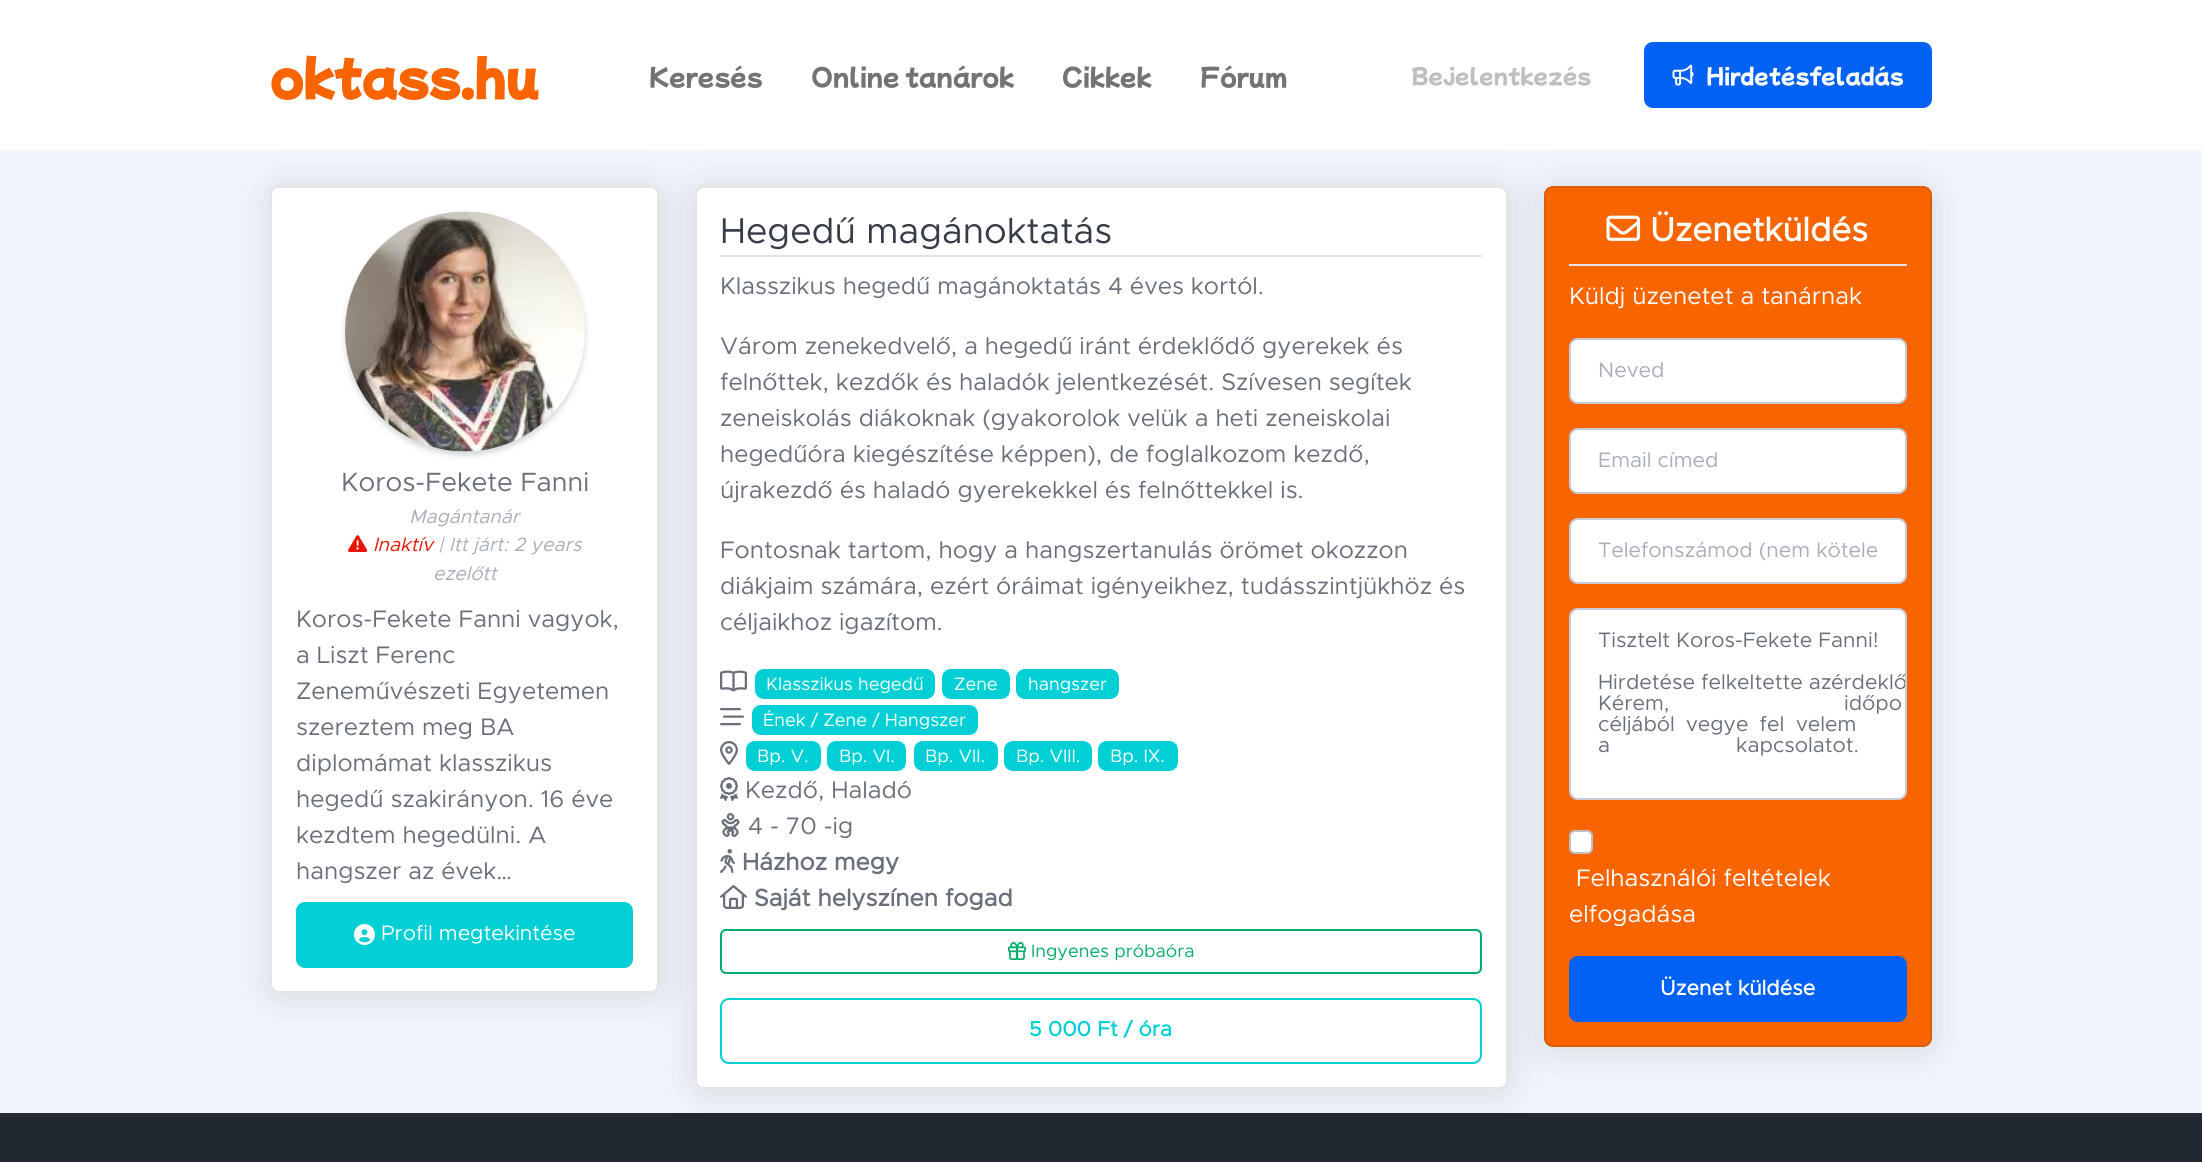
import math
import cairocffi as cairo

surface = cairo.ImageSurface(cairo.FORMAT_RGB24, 2202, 1162)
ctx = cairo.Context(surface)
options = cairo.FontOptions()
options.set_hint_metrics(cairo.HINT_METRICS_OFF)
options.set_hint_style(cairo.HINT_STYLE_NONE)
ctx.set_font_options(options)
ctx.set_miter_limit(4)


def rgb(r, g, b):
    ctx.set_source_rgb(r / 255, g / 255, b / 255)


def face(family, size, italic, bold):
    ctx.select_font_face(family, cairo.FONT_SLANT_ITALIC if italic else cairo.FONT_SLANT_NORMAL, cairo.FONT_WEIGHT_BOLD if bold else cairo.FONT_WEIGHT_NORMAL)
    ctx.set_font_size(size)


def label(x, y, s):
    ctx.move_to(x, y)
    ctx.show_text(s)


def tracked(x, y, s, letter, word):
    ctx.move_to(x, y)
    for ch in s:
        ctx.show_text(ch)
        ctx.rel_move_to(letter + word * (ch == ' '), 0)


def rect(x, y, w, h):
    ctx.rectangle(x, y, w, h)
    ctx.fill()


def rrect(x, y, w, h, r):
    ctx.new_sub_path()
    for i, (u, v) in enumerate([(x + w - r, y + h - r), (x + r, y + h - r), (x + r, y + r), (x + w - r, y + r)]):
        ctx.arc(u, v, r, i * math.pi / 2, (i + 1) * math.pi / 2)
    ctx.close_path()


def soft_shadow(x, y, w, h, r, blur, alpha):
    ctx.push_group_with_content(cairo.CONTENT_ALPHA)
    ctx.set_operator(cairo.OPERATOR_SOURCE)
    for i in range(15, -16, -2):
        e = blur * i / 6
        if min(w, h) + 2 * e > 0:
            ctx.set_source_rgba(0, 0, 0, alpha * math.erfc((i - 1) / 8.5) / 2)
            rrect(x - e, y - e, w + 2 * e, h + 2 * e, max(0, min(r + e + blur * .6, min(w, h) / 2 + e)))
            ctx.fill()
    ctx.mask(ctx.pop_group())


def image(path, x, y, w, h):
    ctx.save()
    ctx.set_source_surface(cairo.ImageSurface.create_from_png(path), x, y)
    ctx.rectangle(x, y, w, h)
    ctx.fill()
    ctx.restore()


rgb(242, 246, 252)
ctx.paint()
rgb(255, 255, 255)
rect(0, 0, 2202, 150)
face('Mochiy Pop P One', 48, 0, 1)
rgb(247, 100, 0)
label(270, 96, 'oktass.hu')
face('Mochiy Pop P One', 24, 0, 0)
rgb(115, 115, 115)
label(649, 86, 'Keresés')
label(811, 86, 'Online tanárok')
label(1062, 86, 'Cikkek')
label(1200, 86, 'Fórum')
face('Mochiy Pop P One', 21, 0, 0)
rgb(191, 191, 191)
label(1411, 84, 'Bejelentkezés')
rgb(0, 97, 242)
rrect(1645, 43, 286, 64, 8)
ctx.fill_preserve()
ctx.stroke()
image('image0.png', 1672, 64, 22, 22)
rgb(255, 255, 255)
label(1706, 84, 'Hirdetésfeladás')
rgb(33, 40, 50)
soft_shadow(270, 189, 389, 807, 9, 21, 0.15)
rgb(255, 255, 255)
rrect(270, 186, 389, 807, 9)
ctx.fill()
rrect(271, 187, 387, 805, 8)
ctx.set_source_rgba(0.129, 0.157, 0.196, 0.12)
ctx.stroke()
rgb(33, 40, 50)
soft_shadow(345, 215, 240, 240, 120, 3, 0.2)
image('image1.png', 345, 211, 240, 241)
face('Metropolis', 26.5, 0, 0)
rgb(105, 112, 122)
label(341, 491, 'Koros-Fekete Fanni')
face('Metropolis', 19.25, 1, 0)
rgb(167, 174, 184)
label(409, 523, 'Magántanár')
image('image2.png', 348, 535, 20, 17)
rgb(232, 21, 0)
label(373, 551, 'Inaktív')
rgb(167, 174, 184)
label(438, 551, '| Itt járt: 2 years')
label(433, 580, 'ezelőtt')
face('Metropolis', 24, 0, 0)
rgb(105, 112, 122)
label(296, 627, 'Koros-Fekete Fanni vagyok,')
label(296, 663, 'a Liszt Ferenc')
label(296, 699, 'Zeneművészeti Egyetemen')
label(296, 735, 'szereztem meg BA')
label(296, 771, 'diplomámat klasszikus')
label(296, 807, 'hegedű szakirányon. 16 éve')
label(296, 843, 'kezdtem hegedülni. A')
label(296, 879, 'hangszer az évek…')
rgb(0, 207, 213)
rrect(297, 903, 335, 64, 8)
ctx.fill_preserve()
ctx.stroke()
image('image3.png', 354, 924, 21, 21)
face('Metropolis', 21, 0, 0)
rgb(255, 255, 255)
label(381, 940, 'Profil megtekintése')
rgb(33, 40, 50)
rect(0, 1113, 2202, 49)
rgb(33, 40, 50)
soft_shadow(695, 189, 813, 903, 9, 21, 0.15)
rgb(255, 255, 255)
rrect(695, 186, 813, 903, 9)
ctx.fill()
rrect(696, 187, 811, 901, 8)
ctx.set_source_rgba(0.129, 0.157, 0.196, 0.12)
ctx.stroke()
rgb(224, 229, 236)
rect(720, 255, 762, 2)
face('Metropolis', 36, 0, 0)
rgb(54, 61, 71)
label(720, 243, 'Hegedű magánoktatás')
face('Metropolis', 24, 0, 0)
rgb(105, 112, 122)
label(720, 294, 'Klasszikus hegedű magánoktatás 4 éves kortól.')
label(720, 354, 'Várom zenekedvelő, a hegedű iránt érdeklődő gyerekek és')
label(720, 390, 'felnőttek, kezdők és haladók jelentkezését. Szívesen segítek')
label(720, 426, 'zeneiskolás diákoknak (gyakorolok velük a heti zeneiskolai')
label(720, 462, 'hegedűóra kiegészítése képpen), de foglalkozom kezdő,')
label(720, 498, 'újrakezdő és haladó gyerekekkel és felnőttekkel is.')
label(720, 558, 'Fontosnak tartom, hogy a hangszertanulás örömet okozzon')
label(720, 594, 'diákjaim számára, ezért óráimat igényeikhez, tudásszintjükhöz és')
label(720, 630, 'céljaikhoz igazítom.')
image('image4.png', 720, 670, 27, 22)
rgb(0, 207, 213)
rrect(755, 669, 180, 30, 9)
ctx.fill()
face('Metropolis', 18, 0, 0)
rgb(255, 255, 255)
label(766, 690, 'Klasszikus hegedű')
rgb(0, 207, 213)
rrect(942, 669, 68, 30, 9)
ctx.fill()
rgb(255, 255, 255)
label(954, 690, 'Zene')
rgb(0, 207, 213)
rrect(1016, 669, 103, 30, 9)
ctx.fill()
rgb(255, 255, 255)
label(1028, 690, 'hangszer')
image('image5.png', 720, 708, 24, 18)
rgb(0, 207, 213)
rrect(752, 705, 226, 30, 9)
ctx.fill()
rgb(255, 255, 255)
label(763, 726, 'Ének / Zene / Hangszer')
image('image6.png', 720, 741, 18, 24)
rgb(0, 207, 213)
rrect(746, 741, 75, 30, 9)
ctx.fill()
rgb(255, 255, 255)
label(757, 762, 'Bp. V.')
rgb(0, 207, 213)
rrect(827, 741, 79, 30, 9)
ctx.fill()
rgb(255, 255, 255)
label(839, 762, 'Bp. VI.')
rgb(0, 207, 213)
rrect(914, 741, 84, 30, 9)
ctx.fill()
rgb(255, 255, 255)
label(925, 762, 'Bp. VII.')
rgb(0, 207, 213)
rrect(1004, 741, 88, 30, 9)
ctx.fill()
rgb(255, 255, 255)
label(1016, 762, 'Bp. VIII.')
rgb(0, 207, 213)
rrect(1098, 741, 80, 30, 9)
ctx.fill()
rgb(255, 255, 255)
label(1110, 762, 'Bp. IX.')
image('image7.png', 720, 777, 18, 24)
face('Metropolis', 24, 0, 0)
rgb(105, 112, 122)
label(745, 798, 'Kezdő, Haladó')
image('image8.png', 721, 813, 19, 24)
label(748, 834, '4 - 70 -ig')
image('image9.png', 720, 849, 15, 24)
face('Metropolis', 24, 0, 1)
label(742, 870, 'Házhoz megy')
image('image10.png', 720, 885, 27, 24)
label(754, 906, 'Saját helyszínen fogad')
rrect(721, 930, 760, 43, 5)
rgb(0, 172, 105)
ctx.stroke()
image('image11.png', 1008, 942, 18, 18)
face('Metropolis', 18, 0, 0)
label(1031, 957, 'Ingyenes próbaóra')
rrect(721, 999, 760, 64, 8)
rgb(0, 207, 213)
ctx.stroke()
face('Metropolis', 21, 0, 1)
label(1029, 1036, '5 000 Ft / óra')
rgb(33, 40, 50)
soft_shadow(1544, 189, 388, 861, 9, 21, 0.15)
rgb(247, 100, 0)
rrect(1544, 186, 388, 861, 9)
ctx.fill()
rrect(1545, 187, 386, 859, 8)
ctx.set_source_rgba(0.129, 0.157, 0.196, 0.12)
ctx.stroke()
rgb(224, 229, 236)
rect(1569, 264, 338, 2)
image('image12.png', 1606, 215, 35, 26)
face('Metropolis', 33.5, 0, 1)
rgb(255, 255, 255)
label(1650, 241, 'Üzenetküldés')
face('Metropolis', 24, 0, 0)
label(1569, 304, 'Küldj üzenetet a tanárnak')
rrect(1570, 339, 336, 64, 8)
ctx.fill_preserve()
rgb(197, 204, 214)
ctx.stroke()
face('Metropolis', 21, 0, 0)
rgb(167, 174, 184)
label(1598, 377, 'Neved')
rgb(255, 255, 255)
rrect(1570, 429, 336, 64, 8)
ctx.fill_preserve()
rgb(197, 204, 214)
ctx.stroke()
rgb(167, 174, 184)
label(1598, 467, 'Email címed')
rgb(255, 255, 255)
rrect(1570, 519, 336, 64, 8)
ctx.fill_preserve()
rgb(197, 204, 214)
ctx.stroke()
rgb(167, 174, 184)
label(1598, 557, 'Telefonszámod (nem kötele')
rgb(255, 255, 255)
rrect(1570, 609, 336, 190, 8)
ctx.fill_preserve()
rgb(197, 204, 214)
ctx.stroke()
rgb(105, 112, 122)
label(1598, 647, 'Tisztelt Koros-Fekete Fanni!')
label(1598, 689, 'Hirdetése felkeltette az')
ctx.save()
rrect(1571, 609, 334, 189, 8)
ctx.clip()
label(1831, 689, 'érdeklő')
ctx.restore()
label(1598, 710, 'Kérem,')
label(1844, 710, 'időpo')
tracked(1598, 731, 'céljából vegye fel', 0, 5)
label(1796, 731, 'velem')
tracked(1598, 752, 'a kapcsolatot.', 0, 120)
rgb(255, 255, 255)
rrect(1569, 830, 24, 24, 6)
ctx.fill()
rrect(1570, 831, 22, 22, 5)
ctx.set_source_rgba(0, 0, 0, 0.25)
ctx.stroke()
face('Metropolis', 24, 0, 0)
rgb(255, 255, 255)
label(1576, 886, 'Felhasználói feltételek')
label(1569, 922, 'elfogadása')
rgb(0, 97, 242)
rrect(1570, 957, 336, 64, 8)
ctx.fill_preserve()
ctx.stroke()
face('Metropolis', 21, 0, 1)
rgb(255, 255, 255)
label(1660, 995, 'Üzenet küldése')
surface.write_to_png('render.png')
